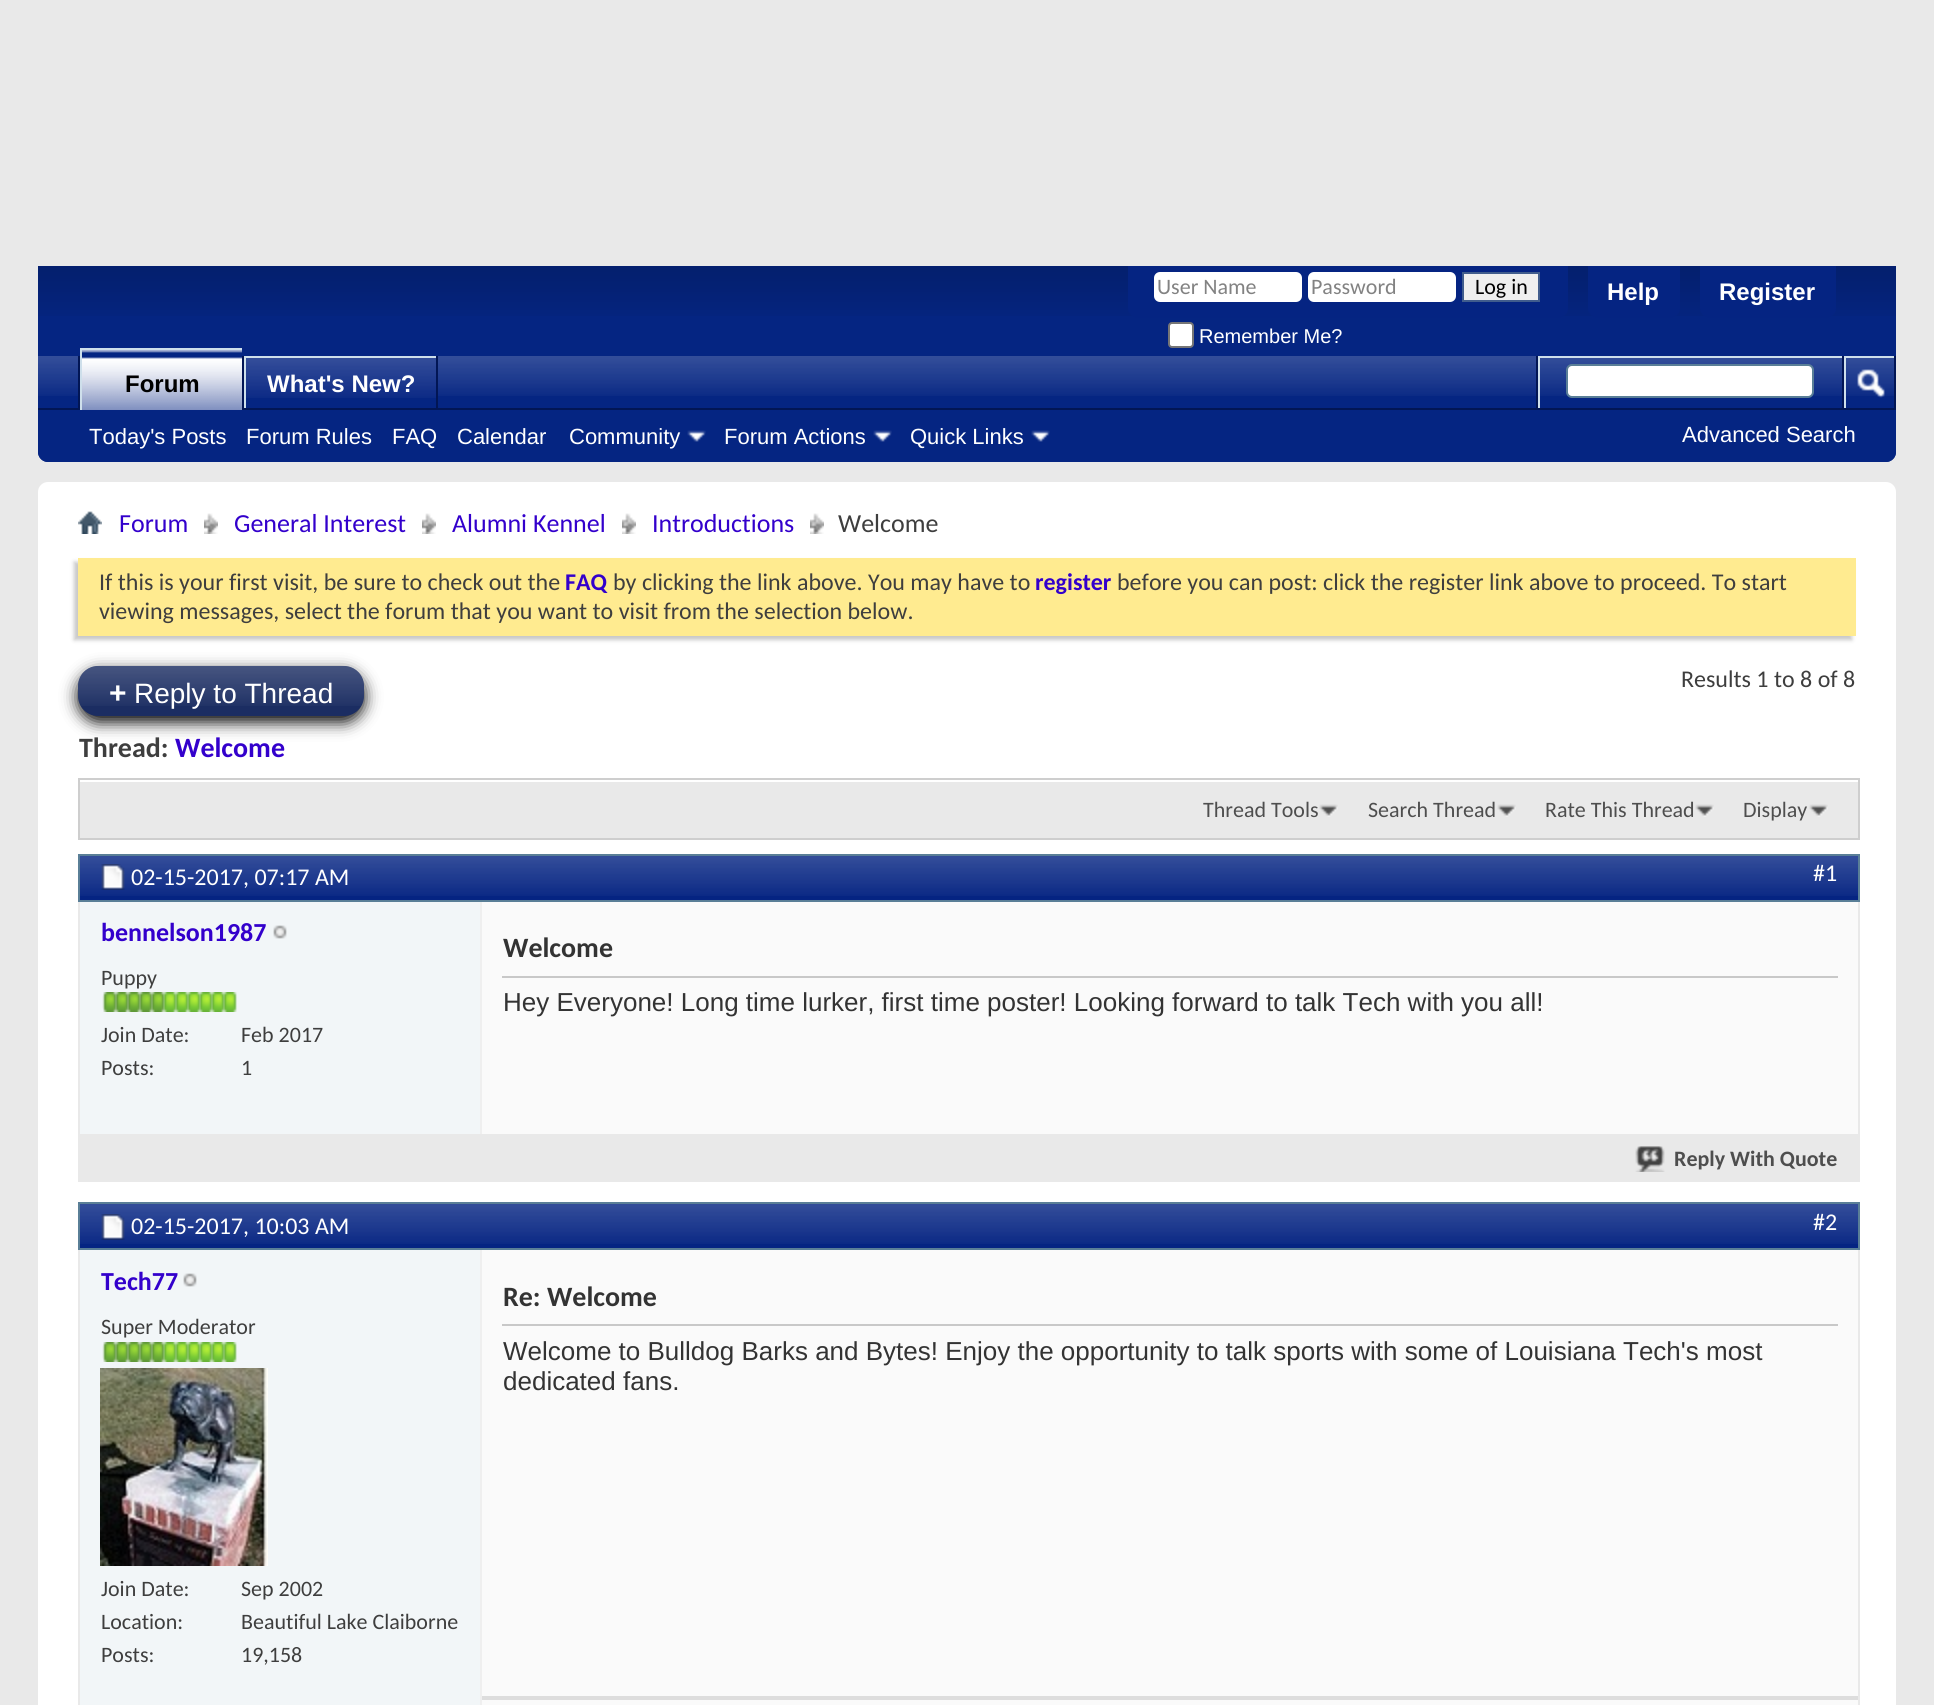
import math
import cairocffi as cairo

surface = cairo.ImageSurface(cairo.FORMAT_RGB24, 1934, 1705)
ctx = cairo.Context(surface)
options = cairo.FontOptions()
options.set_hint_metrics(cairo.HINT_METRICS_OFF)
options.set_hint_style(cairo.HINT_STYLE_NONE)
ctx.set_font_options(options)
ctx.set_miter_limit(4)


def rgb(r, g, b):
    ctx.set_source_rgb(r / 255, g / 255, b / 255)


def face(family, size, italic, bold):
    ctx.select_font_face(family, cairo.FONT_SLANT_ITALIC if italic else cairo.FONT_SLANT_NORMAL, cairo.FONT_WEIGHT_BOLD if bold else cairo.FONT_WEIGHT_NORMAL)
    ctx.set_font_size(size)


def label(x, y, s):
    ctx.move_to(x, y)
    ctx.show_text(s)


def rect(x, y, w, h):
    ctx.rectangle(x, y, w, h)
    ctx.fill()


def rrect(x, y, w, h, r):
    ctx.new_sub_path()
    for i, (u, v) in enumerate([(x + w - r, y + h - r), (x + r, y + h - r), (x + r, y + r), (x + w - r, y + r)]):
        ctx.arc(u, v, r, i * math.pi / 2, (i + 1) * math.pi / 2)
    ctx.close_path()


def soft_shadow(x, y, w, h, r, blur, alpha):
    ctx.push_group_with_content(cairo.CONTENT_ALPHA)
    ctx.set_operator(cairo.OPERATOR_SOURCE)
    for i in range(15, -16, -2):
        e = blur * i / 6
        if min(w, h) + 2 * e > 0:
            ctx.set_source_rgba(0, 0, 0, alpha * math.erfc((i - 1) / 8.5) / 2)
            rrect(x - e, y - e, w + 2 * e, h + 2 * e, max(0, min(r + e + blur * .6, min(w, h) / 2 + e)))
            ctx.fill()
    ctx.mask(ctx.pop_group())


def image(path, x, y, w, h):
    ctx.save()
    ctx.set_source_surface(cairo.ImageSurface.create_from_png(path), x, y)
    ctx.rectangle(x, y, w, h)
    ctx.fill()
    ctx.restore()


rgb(233, 233, 233)
ctx.paint()
rgb(5, 37, 130)
ctx.new_path()
ctx.move_to(38, 266)
ctx.line_to(1896, 266)
ctx.line_to(1896, 452)
ctx.curve_to(1896, 457.5, 1891.5, 462, 1886, 462)
ctx.line_to(48, 462)
ctx.curve_to(42.5, 462, 38, 457.5, 38, 452)
ctx.close_path()
ctx.fill()
image('image0.png', 38, 266, 1858, 50)
rgb(5, 36, 130)
ctx.new_path()
ctx.move_to(1128, 266)
ctx.line_to(1568, 266)
ctx.line_to(1568, 308)
ctx.curve_to(1568, 313.5, 1563.5, 318, 1558, 318)
ctx.line_to(1138, 318)
ctx.curve_to(1132.5, 318, 1128, 313.5, 1128, 308)
ctx.close_path()
ctx.fill()
rgb(255, 255, 255)
rrect(1154, 272, 148, 30, 6)
ctx.fill()
face('Carlito', 22, 0, 0)
rgb(130, 130, 130)
label(1157, 294, 'User Name')
rgb(255, 255, 255)
rrect(1308, 272, 148, 30, 6)
ctx.fill()
rgb(130, 130, 130)
label(1311, 294, 'Password')
rgb(239, 239, 239)
ctx.rectangle(1463, 273, 76, 28)
ctx.fill_preserve()
rgb(65, 93, 141)
ctx.stroke()
rgb(0, 0, 0)
label(1475, 294, 'Log in')
rgb(255, 255, 255)
rrect(1169, 323, 24, 24, 3)
ctx.fill_preserve()
rgb(118, 118, 118)
ctx.stroke()
face('Liberation Sans', 20, 0, 0)
rgb(255, 255, 255)
label(1199, 343, 'Remember Me?')
rgb(5, 36, 130)
ctx.new_path()
ctx.move_to(1588, 266)
ctx.line_to(1680, 266)
ctx.line_to(1680, 308)
ctx.curve_to(1680, 313.5, 1675.5, 318, 1670, 318)
ctx.line_to(1598, 318)
ctx.curve_to(1592.5, 318, 1588, 313.5, 1588, 308)
ctx.close_path()
ctx.fill()
face('Liberation Sans', 24, 0, 1)
rgb(255, 255, 255)
label(1607, 300, 'Help')
rgb(5, 36, 130)
ctx.new_path()
ctx.move_to(1700, 266)
ctx.line_to(1836, 266)
ctx.line_to(1836, 308)
ctx.curve_to(1836, 313.5, 1831.5, 318, 1826, 318)
ctx.line_to(1710, 318)
ctx.curve_to(1704.5, 318, 1700, 313.5, 1700, 308)
ctx.close_path()
ctx.fill()
rgb(255, 255, 255)
label(1719, 300, 'Register')
rgb(5, 37, 130)
ctx.new_path()
ctx.move_to(38, 356)
ctx.line_to(1896, 356)
ctx.line_to(1896, 452)
ctx.curve_to(1896, 457.5, 1891.5, 462, 1886, 462)
ctx.line_to(48, 462)
ctx.curve_to(42.5, 462, 38, 457.5, 38, 452)
ctx.close_path()
ctx.fill()
image('image1.png', 38, 356, 1856, 40)
rgb(2, 22, 85)
rect(436, 356, 2, 54)
rgb(5, 36, 130)
rect(246, 358, 190, 38)
image('image2.png', 246, 358, 190, 40)
rgb(206, 223, 235)
rect(244, 356, 192, 2)
rect(244, 356, 2, 54)
rgb(255, 255, 255)
label(267, 392, 'What\'s New?')
rgb(2, 22, 85)
rect(242, 356, 2, 52)
rect(78, 356, 2, 52)
rect(38, 408, 1858, 2)
rgb(5, 36, 130)
rect(82, 356, 160, 54)
image('image3.png', 82, 350, 160, 60)
rgb(206, 223, 235)
rect(80, 348, 162, 2)
rect(80, 348, 2, 62)
rgb(0, 0, 0)
label(125, 392, 'Forum')
face('Liberation Sans', 22, 0, 0)
rgb(255, 255, 255)
label(89, 444, 'Today\'s Posts')
label(246, 444, 'Forum Rules')
label(392, 444, 'FAQ')
label(457, 444, 'Calendar')
label(569, 444, 'Community')
image('image4.png', 687, 430, 19, 12)
label(724, 444, 'Forum Actions')
image('image4.png', 873, 430, 19, 12)
label(910, 444, 'Quick Links')
image('image4.png', 1031, 430, 19, 12)
rgb(2, 22, 85)
rect(1536, 356, 2, 52)
rgb(206, 223, 235)
rect(1538, 356, 304, 2)
rect(1538, 356, 2, 52)
rgb(255, 255, 255)
rrect(1567, 365, 246, 32, 5)
ctx.fill_preserve()
rgb(90, 127, 151)
ctx.stroke()
rgb(2, 22, 85)
rect(1894, 356, 2, 52)
rect(1842, 356, 2, 52)
rgb(206, 223, 235)
rect(1844, 356, 50, 2)
rect(1844, 356, 2, 52)
image('image5.png', 1857, 369, 28, 29)
rgb(255, 255, 255)
label(1682, 442, 'Advanced Search')
rrect(38, 482, 1858, 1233, 10)
ctx.fill()
image('image6.png', 78, 511, 24, 23)
image('image7.png', 204, 513, 14, 21)
face('Carlito', 26, 0, 0)
rgb(51, 0, 204)
label(119, 532, 'Forum')
image('image7.png', 422, 513, 14, 21)
label(234, 532, 'General Interest')
image('image7.png', 622, 513, 14, 21)
label(452, 532, 'Alumni Kennel')
image('image7.png', 810, 513, 14, 21)
label(652, 532, 'Introductions')
rgb(62, 62, 62)
label(838, 532, 'Welcome')
rgb(200, 200, 200)
soft_shadow(74, 562, 1778, 78, 0, 2, 1)
rgb(255, 235, 144)
rect(78, 558, 1778, 78)
face('Carlito', 24, 0, 0)
rgb(62, 62, 62)
label(99, 590, 'If this is your first visit, be sure to check out the')
face('Carlito', 24, 0, 1)
rgb(51, 0, 204)
label(565, 590, 'FAQ')
face('Carlito', 24, 0, 0)
rgb(62, 62, 62)
label(613, 590, 'by clicking the link above. You may have to')
face('Carlito', 24, 0, 1)
rgb(51, 0, 204)
label(1035, 590, 'register')
face('Carlito', 24, 0, 0)
rgb(62, 62, 62)
label(1117, 590, 'before you can post: click the register link above to proceed. To start')
label(99, 619, 'viewing messages, select the forum that you want to visit from the selection below.')
label(1681, 687, 'Results 1 to 8 of 8')
rgb(0, 0, 0)
soft_shadow(78, 672, 286, 50, 20, 8, 1)
rgb(27, 45, 98)
rrect(78, 666, 286, 50, 20)
ctx.fill()
image('image8.png', 78, 666, 286, 40)
face('Liberation Sans', 30, 0, 1)
rgb(255, 255, 255)
label(109, 703, '+')
face('Liberation Sans', 28, 0, 0)
label(134, 703, 'Reply to Thread')
face('Carlito', 28, 0, 1)
rgb(62, 62, 62)
label(79, 757, 'Thread:')
rgb(51, 0, 204)
label(175, 757, 'Welcome')
rgb(233, 233, 233)
rect(80, 782, 1778, 56)
ctx.rectangle(79, 779, 1780, 60)
rgb(206, 206, 206)
ctx.stroke()
image('image9.png', 1319, 804, 19, 13)
face('Carlito', 22, 0, 0)
rgb(78, 78, 78)
label(1203, 817, 'Thread Tools')
image('image9.png', 1497, 804, 19, 13)
label(1368, 817, 'Search Thread')
image('image9.png', 1695, 804, 19, 13)
label(1545, 817, 'Rate This Thread')
image('image9.png', 1809, 804, 19, 13)
label(1743, 817, 'Display')
ctx.rectangle(79, 855, 1780, 326)
rgb(233, 233, 233)
ctx.stroke()
rgb(5, 36, 130)
rect(80, 856, 1778, 44)
image('image10.png', 80, 856, 1778, 40)
ctx.rectangle(79, 855, 1780, 46)
rgb(90, 127, 151)
ctx.stroke()
image('image11.png', 101, 864, 24, 26)
face('Carlito', 24, 0, 0)
rgb(255, 255, 255)
label(131, 885, '02-15-2017, 07:17 AM')
label(1813, 881, '#1')
rgb(242, 246, 248)
rect(80, 902, 400, 232)
face('Carlito', 26, 0, 1)
rgb(51, 0, 204)
label(101, 941, 'bennelson1987')
image('image12.png', 273, 925, 14, 14)
face('Carlito', 22, 0, 0)
rgb(62, 62, 62)
label(101, 985, 'Puppy')
image('image13.png', 102, 992, 15, 20)
image('image14.png', 115, 992, 14, 20)
image('image14.png', 127, 992, 14, 20)
image('image14.png', 139, 992, 14, 20)
image('image14.png', 151, 992, 14, 20)
image('image15.png', 163, 992, 14, 20)
image('image16.png', 175, 992, 14, 20)
image('image16.png', 187, 992, 14, 20)
image('image16.png', 199, 992, 14, 20)
image('image16.png', 211, 992, 14, 20)
image('image16.png', 223, 992, 14, 20)
label(101, 1042, 'Join Date:')
label(241, 1042, 'Feb 2017')
label(101, 1075, 'Posts:')
label(241, 1075, '1')
rgb(250, 250, 250)
rect(482, 902, 1376, 232)
rgb(239, 239, 239)
rect(480, 902, 2, 232)
rgb(200, 200, 200)
rect(502, 976, 1336, 2)
face('Carlito', 28, 0, 1)
rgb(51, 51, 51)
label(503, 957, 'Welcome')
face('Liberation Sans', 26, 0, 0)
label(503, 1011, 'Hey Everyone! Long time lurker, first time poster! Looking forward to talk Tech with you all!')
rgb(233, 233, 233)
rect(80, 1134, 1778, 46)
image('image17.png', 1635, 1146, 30, 26)
face('Carlito', 22, 0, 1)
rgb(78, 78, 78)
label(1674, 1166, 'Reply With Quote')
ctx.rectangle(79, 1203, 1780, 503)
rgb(233, 233, 233)
ctx.stroke()
rgb(5, 36, 130)
rect(80, 1204, 1778, 44)
image('image10.png', 80, 1204, 1778, 40)
ctx.rectangle(79, 1203, 1780, 46)
rgb(90, 127, 151)
ctx.stroke()
image('image18.png', 101, 1214, 24, 26)
face('Carlito', 24, 0, 0)
rgb(255, 255, 255)
label(131, 1234, '02-15-2017, 10:03 AM')
label(1813, 1230, '#2')
rgb(242, 246, 248)
rect(80, 1250, 400, 455)
face('Carlito', 26, 0, 1)
rgb(51, 0, 204)
label(101, 1290, 'Tech77')
image('image12.png', 183, 1273, 14, 14)
face('Carlito', 22, 0, 0)
rgb(62, 62, 62)
label(101, 1334, 'Super Moderator')
image('image13.png', 102, 1342, 15, 20)
image('image14.png', 115, 1342, 14, 20)
image('image14.png', 127, 1342, 14, 20)
image('image14.png', 139, 1342, 14, 20)
image('image14.png', 151, 1342, 14, 20)
image('image15.png', 163, 1342, 14, 20)
image('image16.png', 175, 1342, 14, 20)
image('image16.png', 187, 1342, 14, 20)
image('image16.png', 199, 1342, 14, 20)
image('image16.png', 211, 1342, 14, 20)
image('image16.png', 223, 1342, 14, 20)
image('image19.png', 100, 1368, 168, 198)
label(101, 1596, 'Join Date:')
label(241, 1596, 'Sep 2002')
label(101, 1629, 'Location:')
label(241, 1629, 'Beautiful Lake Claiborne')
label(101, 1662, 'Posts:')
label(241, 1662, '19,158')
rgb(250, 250, 250)
rect(482, 1250, 1376, 455)
rgb(239, 239, 239)
rect(480, 1250, 2, 455)
rgb(200, 200, 200)
rect(502, 1324, 1336, 2)
face('Carlito', 28, 0, 1)
rgb(51, 51, 51)
label(503, 1306, 'Re: Welcome')
face('Liberation Sans', 26, 0, 0)
label(503, 1360, 'Welcome to Bulldog Barks and Bytes! Enjoy the opportunity to talk sports with some of Louisiana Tech\'s most')
label(503, 1390, 'dedicated fans.')
rgb(221, 221, 221)
rect(482, 1696, 1376, 4)
surface.write_to_png('render.png')
